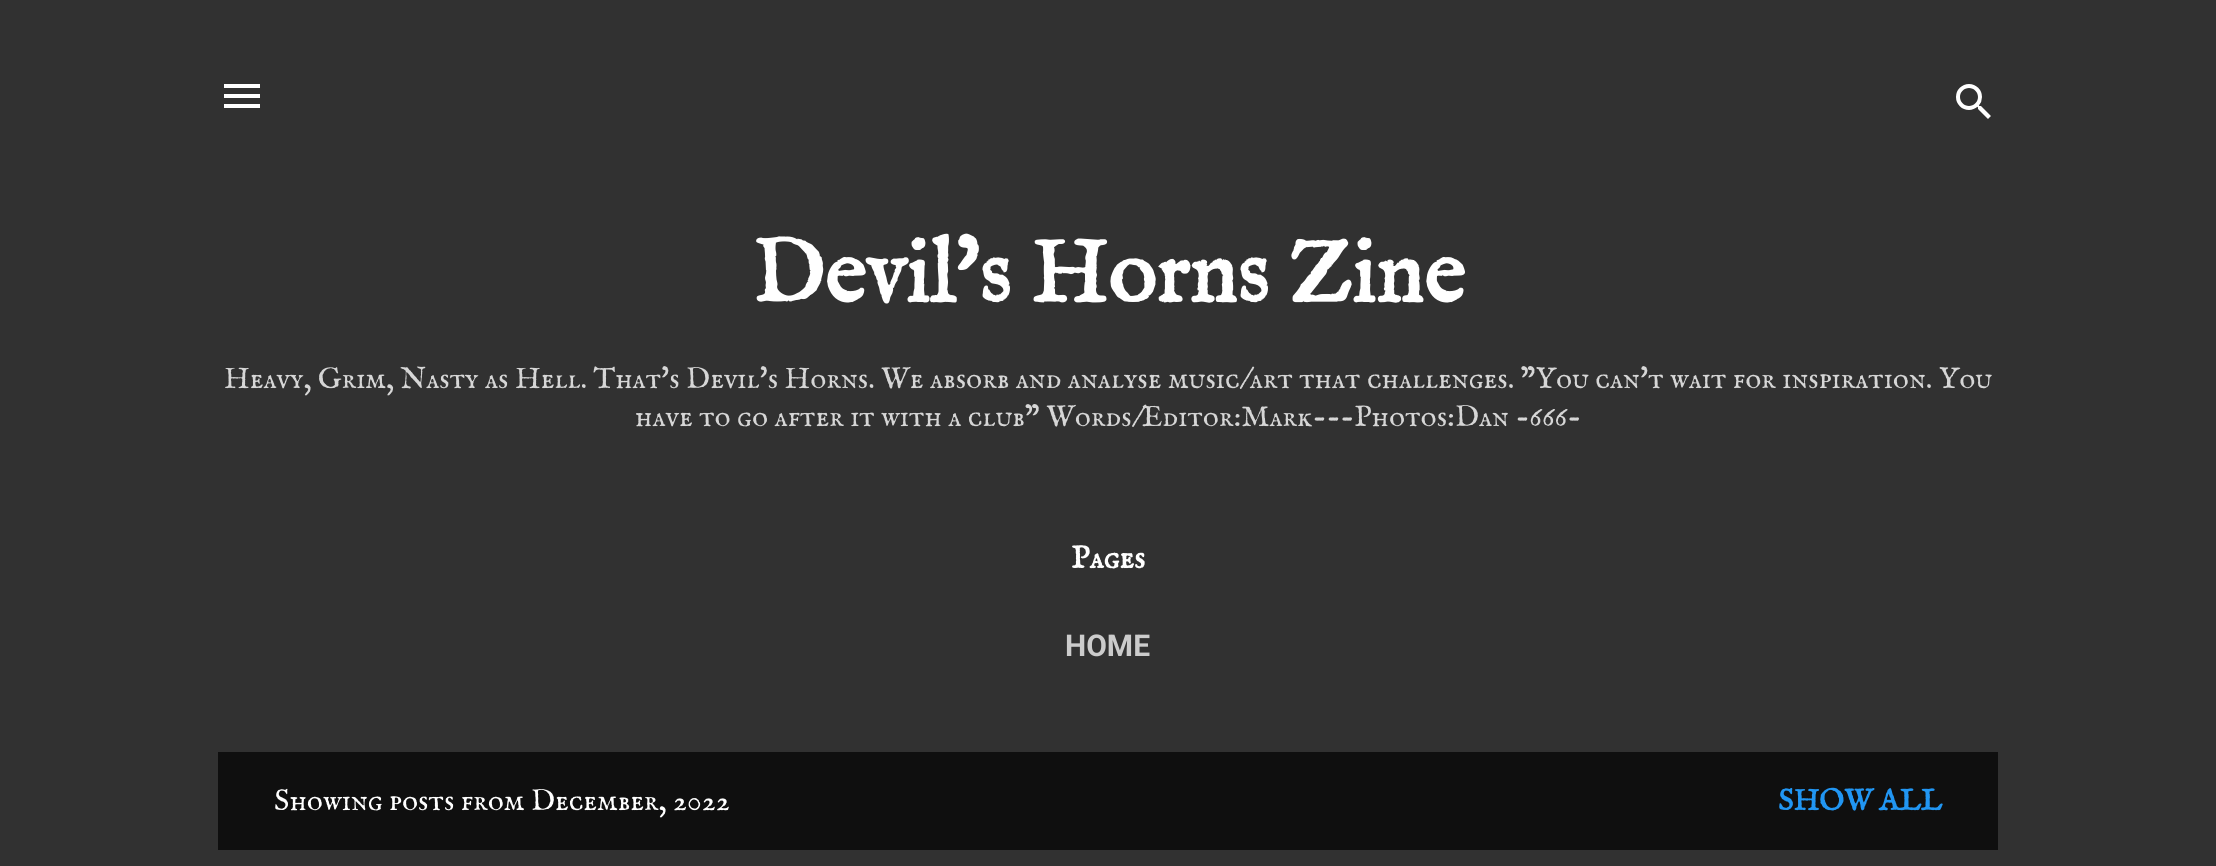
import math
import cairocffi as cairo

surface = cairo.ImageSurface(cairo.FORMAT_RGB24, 2216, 866)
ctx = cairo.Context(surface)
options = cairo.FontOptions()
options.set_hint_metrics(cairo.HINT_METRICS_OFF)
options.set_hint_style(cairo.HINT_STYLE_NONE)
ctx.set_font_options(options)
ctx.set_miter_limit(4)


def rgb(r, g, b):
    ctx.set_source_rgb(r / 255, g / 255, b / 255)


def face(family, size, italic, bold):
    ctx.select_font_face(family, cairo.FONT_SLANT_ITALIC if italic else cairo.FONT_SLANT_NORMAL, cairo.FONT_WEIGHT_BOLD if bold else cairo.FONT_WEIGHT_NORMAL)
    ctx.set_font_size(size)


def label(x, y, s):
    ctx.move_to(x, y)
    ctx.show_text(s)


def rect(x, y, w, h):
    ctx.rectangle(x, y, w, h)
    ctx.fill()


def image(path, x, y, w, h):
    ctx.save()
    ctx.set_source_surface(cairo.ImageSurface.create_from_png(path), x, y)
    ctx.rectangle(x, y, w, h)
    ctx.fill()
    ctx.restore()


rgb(49, 49, 49)
ctx.paint()
image('image0.png', 224, 84, 36, 24)
image('image1.png', 1956, 84, 35, 35)
face('IM FELL English', 90, 0, 1)
rgb(255, 255, 255)
label(752, 302, 'Devil\'s Horns Zine')
face('IM FELL English SC', 30, 0, 0)
rgb(214, 214, 214)
label(224, 388, 'Heavy, Grim, Nasty as Hell. That\'s Devil\'s Horns. We absorb and analyse music/art that challenges. "You can\'t wait for inspiration. You')
label(635, 426, 'have to go after it with a club" Words/Editor:Mark---Photos:Dan -666-')
face('IM FELL English SC', 32, 0, 1)
rgb(255, 255, 255)
label(1071, 568, 'Pages')
face('Roboto', 30, 0, 1)
rgb(204, 204, 204)
label(1065, 656, 'HOME')
rgb(15, 15, 15)
rect(218, 752, 1780, 98)
face('IM FELL English SC', 30, 0, 0)
rgb(255, 255, 255)
label(274, 810, 'Showing posts from December, 2022')
face('IM FELL English SC', 30, 0, 1)
rgb(33, 150, 243)
label(1778, 810, 'SHOW ALL')
surface.write_to_png('render.png')
